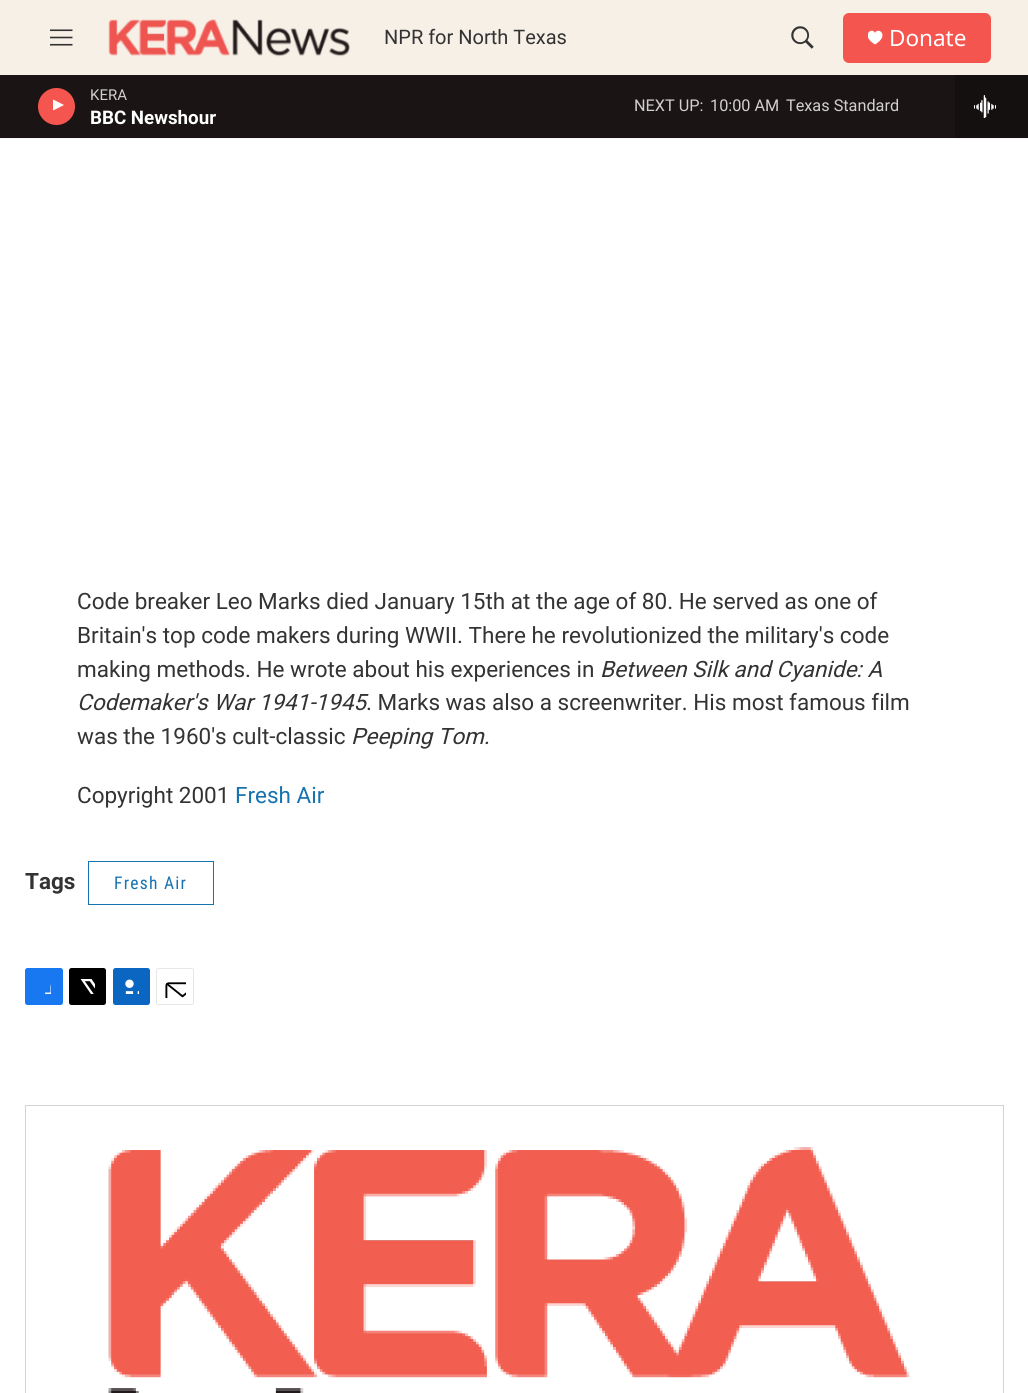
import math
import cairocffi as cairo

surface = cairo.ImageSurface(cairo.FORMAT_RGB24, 1028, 1393)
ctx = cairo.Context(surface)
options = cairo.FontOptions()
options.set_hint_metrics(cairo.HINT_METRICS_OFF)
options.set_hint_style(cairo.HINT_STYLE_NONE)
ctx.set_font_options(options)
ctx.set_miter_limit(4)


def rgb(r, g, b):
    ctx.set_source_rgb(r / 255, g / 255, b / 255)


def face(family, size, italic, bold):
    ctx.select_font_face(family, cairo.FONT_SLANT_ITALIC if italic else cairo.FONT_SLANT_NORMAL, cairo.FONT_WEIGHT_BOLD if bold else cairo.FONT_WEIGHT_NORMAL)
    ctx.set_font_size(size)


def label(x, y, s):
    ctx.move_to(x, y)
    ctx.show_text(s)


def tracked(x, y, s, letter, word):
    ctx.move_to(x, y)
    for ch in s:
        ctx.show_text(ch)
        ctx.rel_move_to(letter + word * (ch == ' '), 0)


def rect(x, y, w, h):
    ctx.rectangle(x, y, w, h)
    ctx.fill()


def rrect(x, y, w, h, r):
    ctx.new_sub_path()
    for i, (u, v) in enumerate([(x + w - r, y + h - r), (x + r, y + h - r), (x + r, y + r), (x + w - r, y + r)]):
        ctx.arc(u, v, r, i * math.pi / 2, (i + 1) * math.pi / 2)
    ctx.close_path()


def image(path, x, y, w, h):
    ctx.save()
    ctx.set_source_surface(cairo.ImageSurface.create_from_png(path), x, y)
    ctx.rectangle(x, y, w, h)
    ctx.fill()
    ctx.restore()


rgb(255, 255, 255)
ctx.paint()
rgb(247, 240, 231)
rect(0, 0, 1028, 75)
rgb(245, 245, 245)
rect(0, 138, 1028, 1)
image('image0.png', 50, 29, 23, 17)
image('image1.png', 108, 19, 242, 38)
face('Roboto', 20, 0, 0)
rgb(51, 51, 51)
label(384, 44, 'NPR for North Texas')
image('image2.png', 791, 26, 23, 23)
rgb(245, 85, 79)
rrect(843, 13, 148, 50, 6)
ctx.fill()
ctx.save()
ctx.rectangle(868, 30, 15, 15)
ctx.clip()
rgb(255, 255, 255)
ctx.new_path()
ctx.move_to(875, 33)
ctx.curve_to(872.5, 26.5, 859.5, 35, 875, 44.5)
ctx.curve_to(890.5, 35, 877.5, 26.5, 875, 33)
ctx.close_path()
ctx.fill()
ctx.restore()
face('Noto Sans', 22.5, 0, 0)
rgb(255, 255, 255)
label(889, 46, 'Donate')
rgb(26, 20, 20)
rect(0, 75, 955, 63)
rgb(245, 85, 79)
ctx.new_path()
ctx.arc(56.5, 106.5, 18.5, 0, 2 * math.pi)
ctx.fill()
ctx.save()
ctx.rectangle(53, 98, 14, 18)
ctx.clip()
rgb(255, 255, 255)
ctx.new_path()
ctx.move_to(52, 99)
ctx.line_to(64, 105)
ctx.line_to(52, 111)
ctx.close_path()
ctx.fill()
ctx.restore()
face('Roboto', 15, 0, 0)
rgb(209, 208, 208)
label(90, 100, 'KERA')
face('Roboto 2', 18.75, 0, 1)
rgb(255, 255, 255)
label(90, 124, 'BBC Newshour')
face('Roboto', 16.25, 0, 0)
rgb(209, 208, 208)
label(634, 111, 'NEXT UP:')
label(710, 111, '10:00 AM')
label(786, 111, 'Texas Standard')
rgb(21, 16, 16)
rect(955, 75, 73, 63)
image('image3.png', 974, 95, 22, 23)
face('Roboto', 22.5, 0, 0)
rgb(51, 51, 51)
label(77, 609, 'Code breaker Leo Marks died January 15th at the age of 80. He served as one of')
label(77, 643, 'Britain\'s top code makers during WWII. There he revolutionized the military\'s code')
label(77, 677, 'making methods. He wrote about his experiences in')
face('Roboto', 22.5, 1, 0)
label(600, 677, 'Between Silk and Cyanide: A')
label(77, 710, 'Codemaker\'s War 1941-1945')
face('Roboto', 22.5, 0, 0)
label(366, 710, '. Marks was also a screenwriter. His most famous film')
label(77, 744, 'was the 1960\'s cult-classic')
face('Roboto', 22.5, 1, 0)
label(351, 744, 'Peeping Tom.')
face('Roboto', 22.5, 0, 0)
label(77, 803, 'Copyright 2001')
rgb(23, 114, 176)
label(235, 803, 'Fresh Air')
face('Roboto', 22.5, 0, 1)
rgb(51, 51, 51)
label(25, 889, 'Tags')
ctx.rectangle(88.5, 861.5, 125, 43)
rgb(23, 114, 176)
ctx.set_line_width(1)
ctx.stroke()
face('Roboto Condensed', 17.5, 0, 0)
tracked(114, 889, 'Fresh Air', 1.25, 0)
rgb(23, 120, 242)
rrect(25, 968, 38, 37, 2.5)
ctx.fill()
image('image4.png', 45, 984, 6, 10)
rgb(0, 0, 0)
rrect(69, 968, 37, 37, 2.5)
ctx.fill()
image('image5.png', 80, 979, 15, 15)
rgb(10, 102, 193)
rrect(113, 968, 37, 37, 2.5)
ctx.fill()
image('image6.png', 125, 979, 14, 15)
rrect(156.5, 968.5, 37, 36, 2)
rgb(230, 230, 230)
ctx.stroke()
image('image7.png', 165, 982, 21, 16)
ctx.rectangle(25.5, 1105.5, 978, 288)
rgb(211, 211, 211)
ctx.stroke()
image('image8.png', 108, 1147, 802, 246)
surface.write_to_png('render.png')
